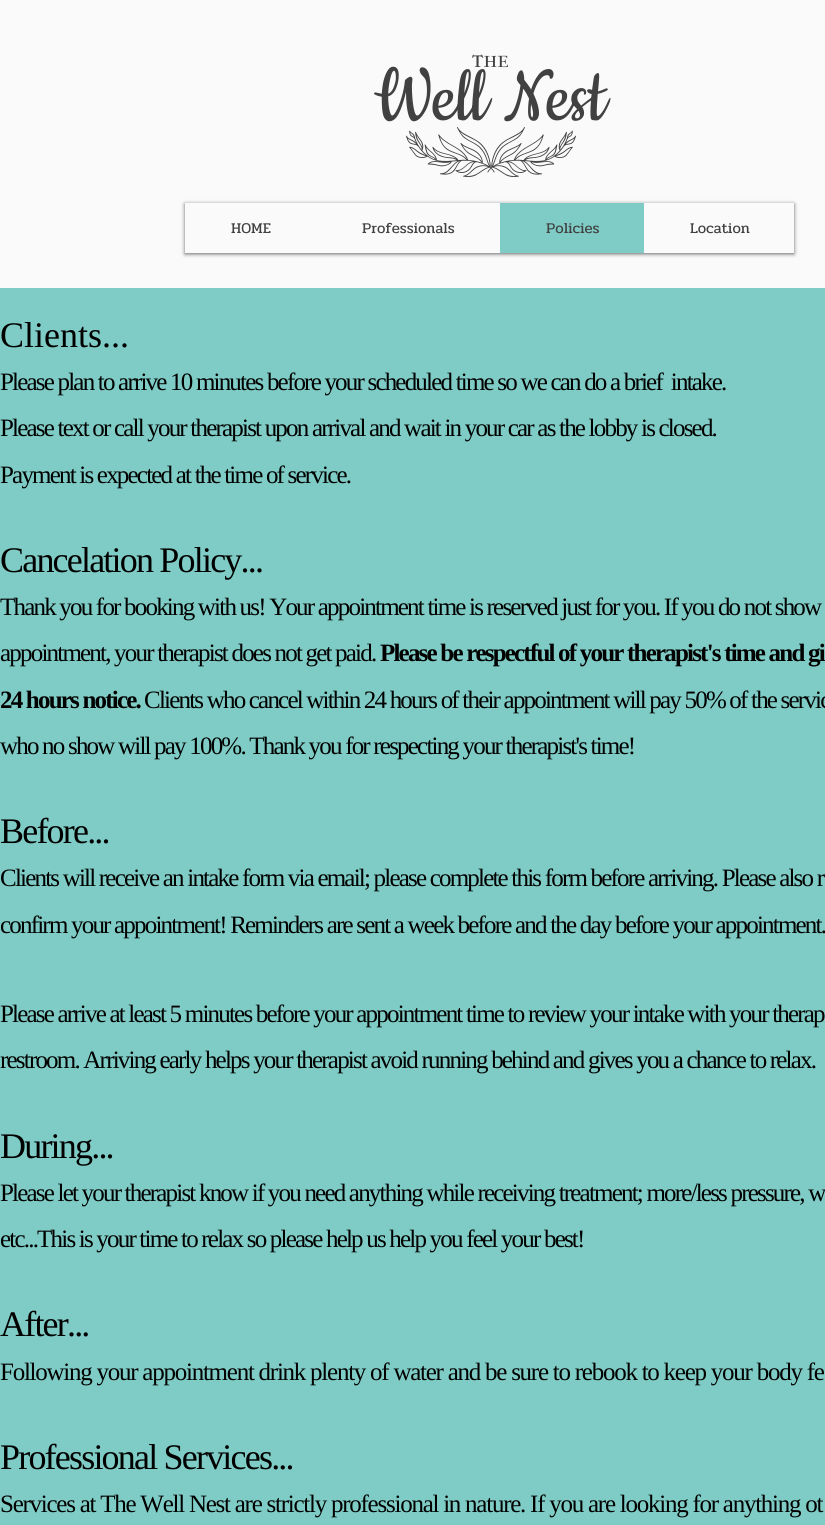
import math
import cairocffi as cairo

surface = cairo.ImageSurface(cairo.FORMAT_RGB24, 825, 1525)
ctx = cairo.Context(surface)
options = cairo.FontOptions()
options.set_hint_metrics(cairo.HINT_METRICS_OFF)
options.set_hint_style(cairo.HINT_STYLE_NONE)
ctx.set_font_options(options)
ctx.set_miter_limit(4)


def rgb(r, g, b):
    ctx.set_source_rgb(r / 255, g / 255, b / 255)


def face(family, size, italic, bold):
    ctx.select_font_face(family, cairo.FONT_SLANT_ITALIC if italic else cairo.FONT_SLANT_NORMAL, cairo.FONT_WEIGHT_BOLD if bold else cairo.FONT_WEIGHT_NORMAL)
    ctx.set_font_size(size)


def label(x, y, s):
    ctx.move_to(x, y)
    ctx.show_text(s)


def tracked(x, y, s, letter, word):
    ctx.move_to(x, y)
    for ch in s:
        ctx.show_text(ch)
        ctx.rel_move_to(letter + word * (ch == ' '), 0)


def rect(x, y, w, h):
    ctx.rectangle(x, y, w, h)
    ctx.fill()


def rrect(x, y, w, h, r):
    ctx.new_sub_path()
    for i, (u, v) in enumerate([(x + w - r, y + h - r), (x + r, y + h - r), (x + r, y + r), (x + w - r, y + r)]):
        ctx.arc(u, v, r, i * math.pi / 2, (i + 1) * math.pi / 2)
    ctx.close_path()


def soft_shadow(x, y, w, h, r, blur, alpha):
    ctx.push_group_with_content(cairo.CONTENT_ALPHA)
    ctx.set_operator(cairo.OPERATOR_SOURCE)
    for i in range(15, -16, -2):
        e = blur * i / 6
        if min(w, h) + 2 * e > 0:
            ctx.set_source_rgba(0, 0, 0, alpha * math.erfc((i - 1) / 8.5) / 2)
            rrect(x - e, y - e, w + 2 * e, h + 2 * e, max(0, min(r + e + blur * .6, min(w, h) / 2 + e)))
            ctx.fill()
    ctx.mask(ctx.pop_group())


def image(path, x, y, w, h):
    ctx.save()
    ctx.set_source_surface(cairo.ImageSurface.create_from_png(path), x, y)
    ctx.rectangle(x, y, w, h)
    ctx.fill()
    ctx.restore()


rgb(250, 250, 250)
ctx.paint()
face('IM FELL French Canon', 20, 0, 0)
rgb(65, 65, 65)
label(472, 67, 'the')
face('Cookie', 85, 0, 0)
label(374, 120, 'Well Nest')
image('image0.png', 406, 127, 170, 50)
ctx.save()
ctx.set_fill_rule(cairo.FILL_RULE_EVEN_ODD)
ctx.new_path()
ctx.move_to(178, 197)
ctx.line_to(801, 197)
ctx.line_to(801, 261)
ctx.line_to(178, 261)
ctx.close_path()
ctx.move_to(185, 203)
ctx.line_to(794, 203)
ctx.line_to(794, 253)
ctx.line_to(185, 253)
ctx.close_path()
ctx.clip()
rgb(0, 0, 0)
soft_shadow(185, 204, 609, 50, 0, 2, 0.6)
ctx.restore()
face('Pridi', 15, 0, 0)
label(231, 233, 'HOME')
label(362, 233, 'Professionals')
rgb(126, 204, 197)
rect(500, 203, 144, 50)
rgb(65, 65, 65)
label(546, 233, 'Policies')
label(690, 233, 'Location')
rgb(126, 204, 197)
rect(0, 288, 825, 1237)
face('Liberation Serif', 36, 0, 0)
rgb(0, 0, 0)
label(0, 347, 'Clients...')
face('Liberation Serif', 25, 0, 0)
tracked(0, 390, 'Please plan to arrive 10 minutes before your scheduled time so we can do a brief  intake.', -1.8, 0)
tracked(0, 436, 'Please text or call your therapist upon arrival and wait in your car as the lobby is closed.', -1.8, 0)
tracked(0, 483, 'Payment is expected at the time of service.', -1.8, 0)
face('Liberation Serif', 36, 0, 0)
tracked(0, 572, 'Cancelation Policy...', -1.8, 0)
face('Liberation Serif', 25, 0, 0)
tracked(0, 615, 'Thank you for booking with us! Your appointment time is reserved just for you. If you do not show', -1.8, 0)
tracked(0, 661, 'appointment, your therapist does not get paid.', -1.8, 0)
face('Liberation Serif', 25, 0, 1)
tracked(380, 661, 'Please be respectful of your therapist\'s time and gi', -1.8, 0)
tracked(0, 708, '24 hours notice.', -1.8, 0)
face('Liberation Serif', 25, 0, 0)
tracked(144, 708, 'Clients who cancel within 24 hours of their appointment will pay 50% of the servic', -1.8, 0)
tracked(0, 754, 'who no show will pay 100%. Thank you for respecting your therapist\'s time!', -1.8, 0)
face('Liberation Serif', 36, 0, 0)
tracked(0, 843, 'Before...', -1.8, 0)
face('Liberation Serif', 25, 0, 0)
tracked(0, 886, 'Clients will receive an intake form via email; please complete this form before arriving. Please also r', -1.8, 0)
tracked(0, 933, 'confirm your appointment! Reminders are sent a week before and the day before your appointment.', -1.8, 0)
tracked(0, 1022, 'Please arrive at least 5 minutes before your appointment time to review your intake with your therap', -1.8, 0)
tracked(0, 1068, 'restroom. Arriving early helps your therapist avoid running behind and gives you a chance to relax.', -1.8, 0)
face('Liberation Serif', 36, 0, 0)
tracked(0, 1158, 'During...', -1.8, 0)
face('Liberation Serif', 25, 0, 0)
tracked(0, 1201, 'Please let your therapist know if you need anything while receiving treatment; more/less pressure, w', -1.8, 0)
tracked(0, 1247, 'etc...This is your time to relax so please help us help you feel your best!', -1.8, 0)
face('Liberation Serif', 36, 0, 0)
tracked(0, 1336, 'After...', -1.8, 0)
face('Liberation Serif', 25, 0, 0)
tracked(0, 1380, 'Following your appointment drink plenty of water and be sure to rebook to keep your body fe', -1.25, 0)
face('Liberation Serif', 36, 0, 0)
tracked(0, 1469, 'Professional Services...', -1.8, 0)
face('Liberation Serif', 25, 0, 0)
tracked(0, 1512, 'Services at The Well Nest are strictly professional in nature. If you are looking for anything ot', -1.25, 0)
surface.write_to_png('render.png')
